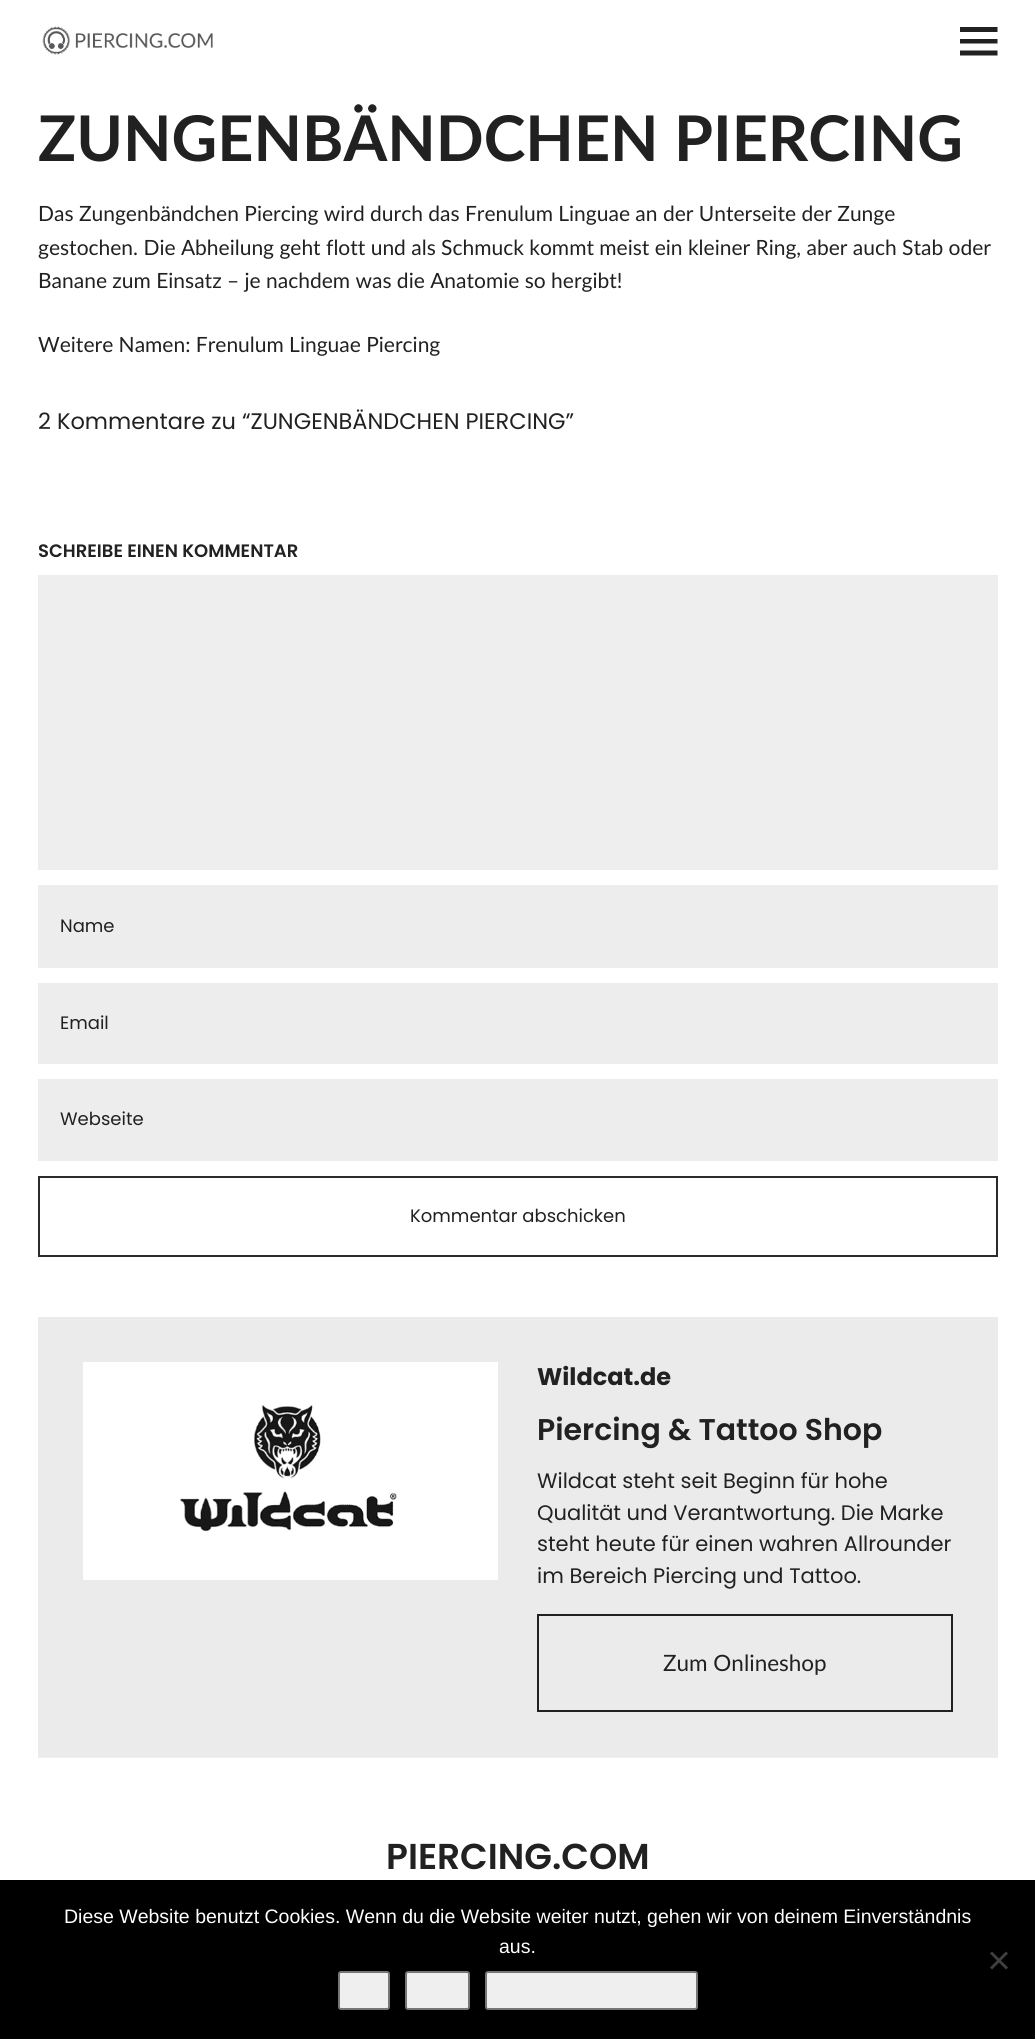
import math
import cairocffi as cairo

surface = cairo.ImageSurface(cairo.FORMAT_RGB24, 1035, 2039)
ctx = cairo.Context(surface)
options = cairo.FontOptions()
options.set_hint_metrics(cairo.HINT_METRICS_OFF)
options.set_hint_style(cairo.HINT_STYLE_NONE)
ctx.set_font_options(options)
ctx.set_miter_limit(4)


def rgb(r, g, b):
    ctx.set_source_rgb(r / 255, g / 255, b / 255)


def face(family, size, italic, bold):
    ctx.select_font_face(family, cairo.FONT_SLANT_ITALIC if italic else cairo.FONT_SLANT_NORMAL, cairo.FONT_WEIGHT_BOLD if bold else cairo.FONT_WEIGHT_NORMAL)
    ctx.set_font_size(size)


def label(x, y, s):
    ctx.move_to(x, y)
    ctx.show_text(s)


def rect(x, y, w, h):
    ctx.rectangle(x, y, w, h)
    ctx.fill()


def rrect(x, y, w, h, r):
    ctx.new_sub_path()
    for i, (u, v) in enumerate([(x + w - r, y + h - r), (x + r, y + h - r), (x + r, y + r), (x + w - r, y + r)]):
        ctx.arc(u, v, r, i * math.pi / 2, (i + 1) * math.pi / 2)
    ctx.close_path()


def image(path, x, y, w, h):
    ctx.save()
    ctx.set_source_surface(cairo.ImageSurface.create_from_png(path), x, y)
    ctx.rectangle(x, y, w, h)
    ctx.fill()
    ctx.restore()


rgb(255, 255, 255)
ctx.paint()
image('image0.png', 42, 26, 171, 29)
rgb(33, 33, 33)
ctx.new_path()
ctx.move_to(960, 55.5)
ctx.line_to(960, 50.5)
ctx.line_to(997.5, 50.5)
ctx.line_to(997.5, 55.5)
ctx.close_path()
ctx.move_to(960, 27)
ctx.line_to(997.5, 27)
ctx.line_to(997.5, 32)
ctx.line_to(960, 32)
ctx.close_path()
ctx.move_to(960, 43.5)
ctx.line_to(960, 39)
ctx.line_to(997.5, 39)
ctx.line_to(997.5, 43.5)
ctx.close_path()
ctx.fill()
face('Lato', 63, 0, 1)
label(38, 161, 'ZUNGENBÄNDCHEN PIERCING')
face('Lato', 21, 0, 0)
label(38, 221, 'Das Zungenbändchen Piercing wird durch das Frenulum Linguae an der Unterseite der Zunge')
label(38, 255, 'gestochen. Die Abheilung geht flott und als Schmuck kommt meist ein kleiner Ring, aber auch Stab oder')
label(38, 288, 'Banane zum Einsatz – je nachdem was die Anatomie so hergibt!')
label(38, 352, 'Weitere Namen: Frenulum Linguae Piercing')
face('Poppins', 22.5, 0, 0)
label(38, 429, '2 Kommentare zu “ZUNGENBÄNDCHEN PIERCING”')
face('Poppins SemiBold', 18, 0, 0)
label(38, 557, 'SCHREIBE EINEN KOMMENTAR')
rgb(238, 238, 238)
rect(38, 575, 960, 295)
rgb(237, 237, 237)
rect(38, 885, 960, 83)
face('Poppins', 18, 0, 0)
rgb(33, 33, 33)
label(60, 932, 'Name')
rgb(237, 237, 237)
rect(38, 983, 960, 81)
rgb(33, 33, 33)
label(60, 1029, 'Email')
rgb(237, 237, 237)
rect(38, 1079, 960, 82)
rgb(33, 33, 33)
label(60, 1125, 'Webseite')
ctx.rectangle(39, 1177, 958, 79)
rgb(43, 43, 43)
ctx.stroke()
rgb(33, 33, 33)
label(410, 1222, 'Kommentar abschicken')
rgb(235, 235, 235)
rect(38, 1317, 960, 440)
rgb(239, 239, 239)
rect(38, 1757, 960, 1)
rgb(255, 255, 255)
rect(83, 1362, 415, 218)
image('image1.png', 180, 1405, 217, 127)
face('Poppins', 24, 0, 1)
rgb(33, 33, 33)
label(537, 1385, 'Wildcat.de')
face('Poppins SemiBold', 30, 0, 0)
label(537, 1440, 'Piercing & Tattoo Shop')
face('Poppins', 21, 0, 0)
label(537, 1488, 'Wildcat steht seit Beginn für hohe')
label(537, 1520, 'Qualität und Verantwortung. Die Marke')
label(537, 1551, 'steht heute für einen wahren Allrounder')
label(537, 1583, 'im Bereich Piercing und Tattoo.')
ctx.rectangle(538, 1615, 414, 96)
ctx.stroke()
face('Lato', 22.5, 0, 0)
label(663, 1671, 'Zum Onlineshop')
face('Poppins SemiBold', 36, 0, 0)
label(386, 1869, 'PIERCING.COM')
rgb(0, 0, 0)
rect(0, 1880, 1035, 159)
face('Liberation Sans', 19.5, 0, 0)
rgb(255, 255, 255)
label(64, 1923, 'Diese Website benutzt Cookies. Wenn du die Website weiter nutzt, gehen wir von deinem Einverständnis')
label(499, 1953, 'aus.')
rgb(64, 64, 64)
ctx.new_path()
ctx.move_to(1006, 1951.5)
ctx.line_to(1008, 1953.5)
ctx.line_to(992, 1969.5)
ctx.line_to(990, 1967.5)
ctx.close_path()
ctx.fill()
ctx.new_path()
ctx.move_to(990, 1953.5)
ctx.line_to(992, 1951.5)
ctx.line_to(1008, 1967.5)
ctx.line_to(1006, 1969.5)
ctx.close_path()
ctx.fill()
rgb(239, 239, 239)
rrect(339, 1972, 50, 37, 2)
ctx.fill_preserve()
rgb(118, 118, 118)
ctx.stroke()
rgb(239, 239, 239)
rrect(406, 1972, 63, 37, 2)
ctx.fill_preserve()
rgb(118, 118, 118)
ctx.stroke()
rgb(239, 239, 239)
rrect(486, 1972, 211, 37, 2)
ctx.fill_preserve()
rgb(118, 118, 118)
ctx.stroke()
surface.write_to_png('render.png')
